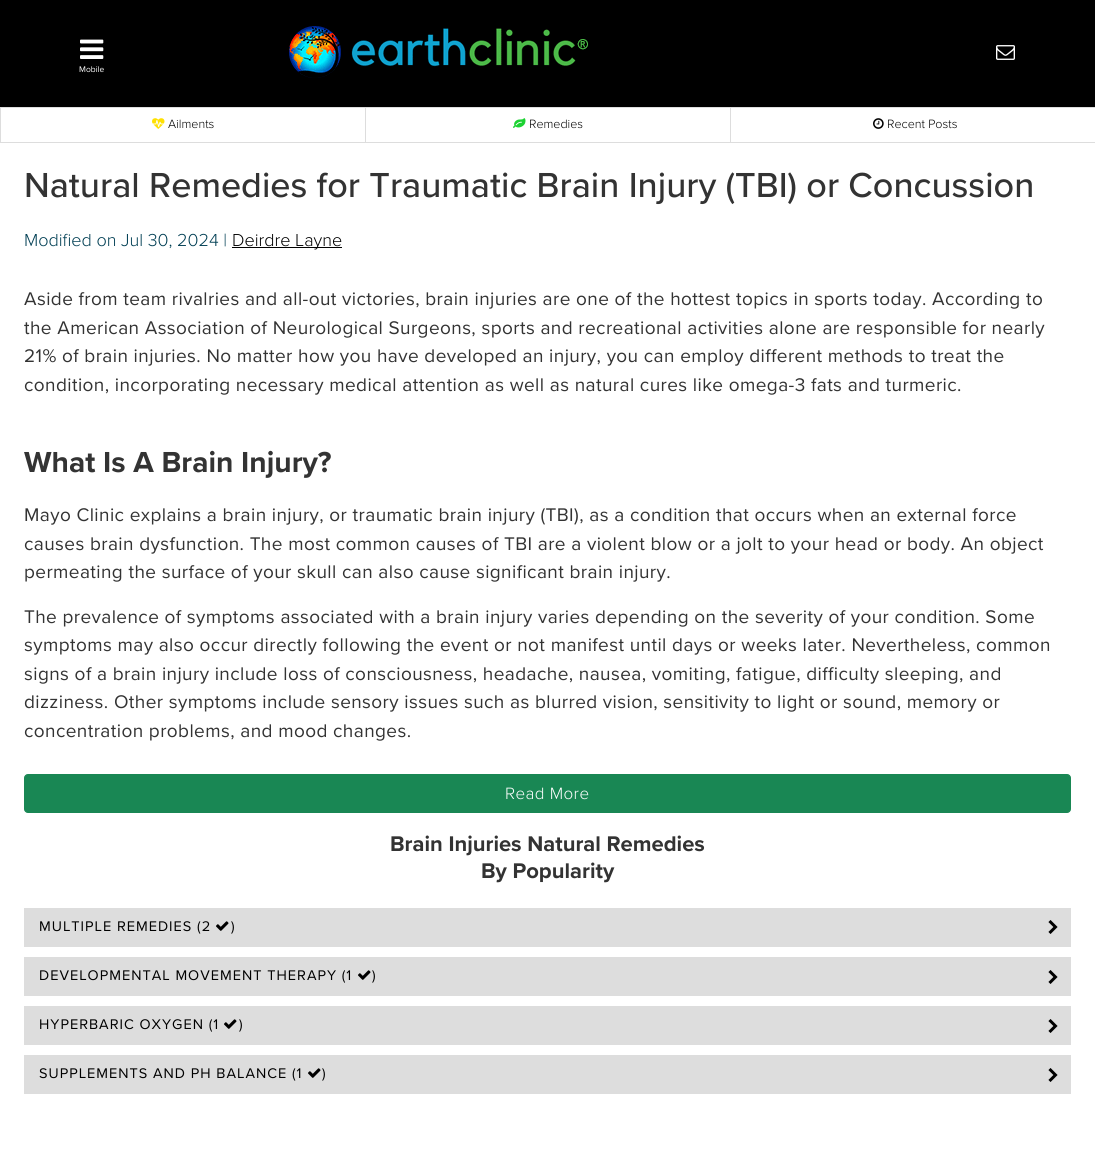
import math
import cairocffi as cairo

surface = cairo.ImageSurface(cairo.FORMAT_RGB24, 1095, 1170)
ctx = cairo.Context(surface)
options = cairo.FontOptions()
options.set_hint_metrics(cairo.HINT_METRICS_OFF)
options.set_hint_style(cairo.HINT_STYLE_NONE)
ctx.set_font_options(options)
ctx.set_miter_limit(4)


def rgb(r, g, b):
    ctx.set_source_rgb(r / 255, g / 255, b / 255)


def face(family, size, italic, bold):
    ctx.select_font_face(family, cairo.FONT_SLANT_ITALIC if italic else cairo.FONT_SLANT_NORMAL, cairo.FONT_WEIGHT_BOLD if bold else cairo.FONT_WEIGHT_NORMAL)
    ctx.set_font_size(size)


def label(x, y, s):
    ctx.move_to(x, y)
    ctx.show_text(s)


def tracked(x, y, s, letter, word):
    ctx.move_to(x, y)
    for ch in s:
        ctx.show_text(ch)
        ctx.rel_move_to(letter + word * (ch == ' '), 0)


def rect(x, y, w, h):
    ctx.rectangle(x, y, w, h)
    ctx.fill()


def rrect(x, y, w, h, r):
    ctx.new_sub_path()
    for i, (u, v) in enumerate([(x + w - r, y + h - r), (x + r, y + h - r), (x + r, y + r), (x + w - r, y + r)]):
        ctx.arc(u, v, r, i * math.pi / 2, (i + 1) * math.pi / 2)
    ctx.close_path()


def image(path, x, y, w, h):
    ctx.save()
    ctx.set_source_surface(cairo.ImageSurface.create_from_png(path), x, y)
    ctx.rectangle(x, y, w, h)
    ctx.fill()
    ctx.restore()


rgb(255, 255, 255)
ctx.paint()
rgb(0, 0, 0)
rect(0, 0, 1095, 107)
image('image0.png', 289, 26, 299, 52)
image('image1.png', 996, 45, 19, 15)
image('image2.png', 80, 39, 24, 20)
face('Proxima Nova', 8.5, 0, 0)
rgb(255, 255, 255)
label(79, 72, 'Mobile')
rgb(221, 221, 221)
rect(0, 107, 1095, 1)
rect(0, 142, 1095, 1)
rect(0, 107, 1, 36)
image('image3.png', 152, 118, 13, 11)
face('Proxima Nova Light', 12.5, 0, 0)
rgb(0, 0, 0)
label(168, 128, 'Ailments')
rgb(221, 221, 221)
rect(365, 107, 1, 36)
image('image4.png', 513, 118, 13, 10)
rgb(0, 0, 0)
label(529, 128, 'Remedies')
rgb(221, 221, 221)
rect(730, 107, 1, 36)
image('image5.png', 873, 118, 11, 11)
rgb(0, 0, 0)
label(887, 128, 'Recent Posts')
face('Proxima Nova Medium', 36, 0, 0)
rgb(51, 51, 51)
label(24, 197, 'Natural Remedies for Traumatic Brain Injury (TBI) or Concussion')
face('Proxima Nova Light', 18, 0, 0)
rgb(0, 62, 83)
label(24, 246, 'Modified on Jul 30, 2024 |')
rgb(0, 0, 0)
rect(232, 247, 110, 1)
label(232, 246, 'Deirdre Layne')
face('Proxima Nova', 19, 0, 0)
rgb(51, 51, 51)
tracked(24, 305, 'Aside from team rivalries and all-out victories, brain injuries are one of the hottest topics in sports today. According to', 0.4, 0)
tracked(24, 334, 'the American Association of Neurological Surgeons, sports and recreational activities alone are responsible for nearly', 0.4, 0)
tracked(24, 362, '21% of brain injuries. No matter how you have developed an injury, you can employ different methods to treat the', 0.4, 0)
tracked(24, 391, 'condition, incorporating necessary medical attention as well as natural cures like omega-3 fats and turmeric.', 0.4, 0)
face('Proxima Nova', 30, 0, 1)
label(24, 472, 'What Is A Brain Injury?')
face('Proxima Nova', 19, 0, 0)
tracked(24, 521, 'Mayo Clinic explains a brain injury, or traumatic brain injury (TBI), as a condition that occurs when an external force', 0.4, 0)
tracked(24, 550, 'causes brain dysfunction. The most common causes of TBI are a violent blow or a jolt to your head or body. An object', 0.4, 0)
tracked(24, 578, 'permeating the surface of your skull can also cause significant brain injury.', 0.4, 0)
tracked(24, 623, 'The prevalence of symptoms associated with a brain injury varies depending on the severity of your condition. Some', 0.4, 0)
tracked(24, 651, 'symptoms may also occur directly following the event or not manifest until days or weeks later. Nevertheless, common', 0.4, 0)
tracked(24, 680, 'signs of a brain injury include loss of consciousness, headache, nausea, vomiting, fatigue, difficulty sleeping, and', 0.4, 0)
tracked(24, 708, 'dizziness. Other symptoms include sensory issues such as blurred vision, sensitivity to light or sound, memory or', 0.4, 0)
tracked(24, 737, 'concentration problems, and mood changes.', 0.4, 0)
rgb(25, 135, 84)
rrect(24.5, 774.5, 1046, 38, 3.5)
ctx.fill_preserve()
ctx.set_line_width(1)
ctx.stroke()
face('Proxima Nova Light', 17, 0, 0)
rgb(255, 255, 255)
tracked(505, 799, 'Read More', 0.4, 0)
face('Proxima Nova', 22, 0, 1)
rgb(51, 51, 51)
label(390, 851, 'Brain Injuries Natural Remedies')
label(481, 878, 'By Popularity')
rgb(221, 221, 221)
rect(24, 908, 1047, 39)
face('Proxima Nova', 14.5, 0, 0)
rgb(0, 0, 0)
tracked(39, 931, 'MULTIPLE REMEDIES (2', 1, 0)
image('image6.png', 216, 921, 13, 10)
tracked(231, 931, ')', 1, 0)
image('image7.png', 1048, 920, 10, 14)
rgb(221, 221, 221)
rect(24, 957, 1047, 39)
rgb(0, 0, 0)
tracked(39, 980, 'DEVELOPMENTAL MOVEMENT THERAPY (1', 1, 0)
image('image6.png', 358, 970, 13, 10)
tracked(372, 980, ')', 1, 0)
image('image7.png', 1048, 970, 10, 14)
rgb(221, 221, 221)
rect(24, 1006, 1047, 39)
rgb(0, 0, 0)
tracked(39, 1029, 'HYPERBARIC OXYGEN (1', 1, 0)
image('image6.png', 224, 1019, 13, 10)
tracked(239, 1029, ')', 1, 0)
image('image7.png', 1048, 1019, 10, 14)
rgb(221, 221, 221)
rect(24, 1055, 1047, 39)
rgb(0, 0, 0)
tracked(39, 1078, 'SUPPLEMENTS AND PH BALANCE (1', 1, 0)
image('image6.png', 308, 1068, 13, 10)
tracked(322, 1078, ')', 1, 0)
image('image7.png', 1048, 1068, 10, 14)
surface.write_to_png('render.png')
